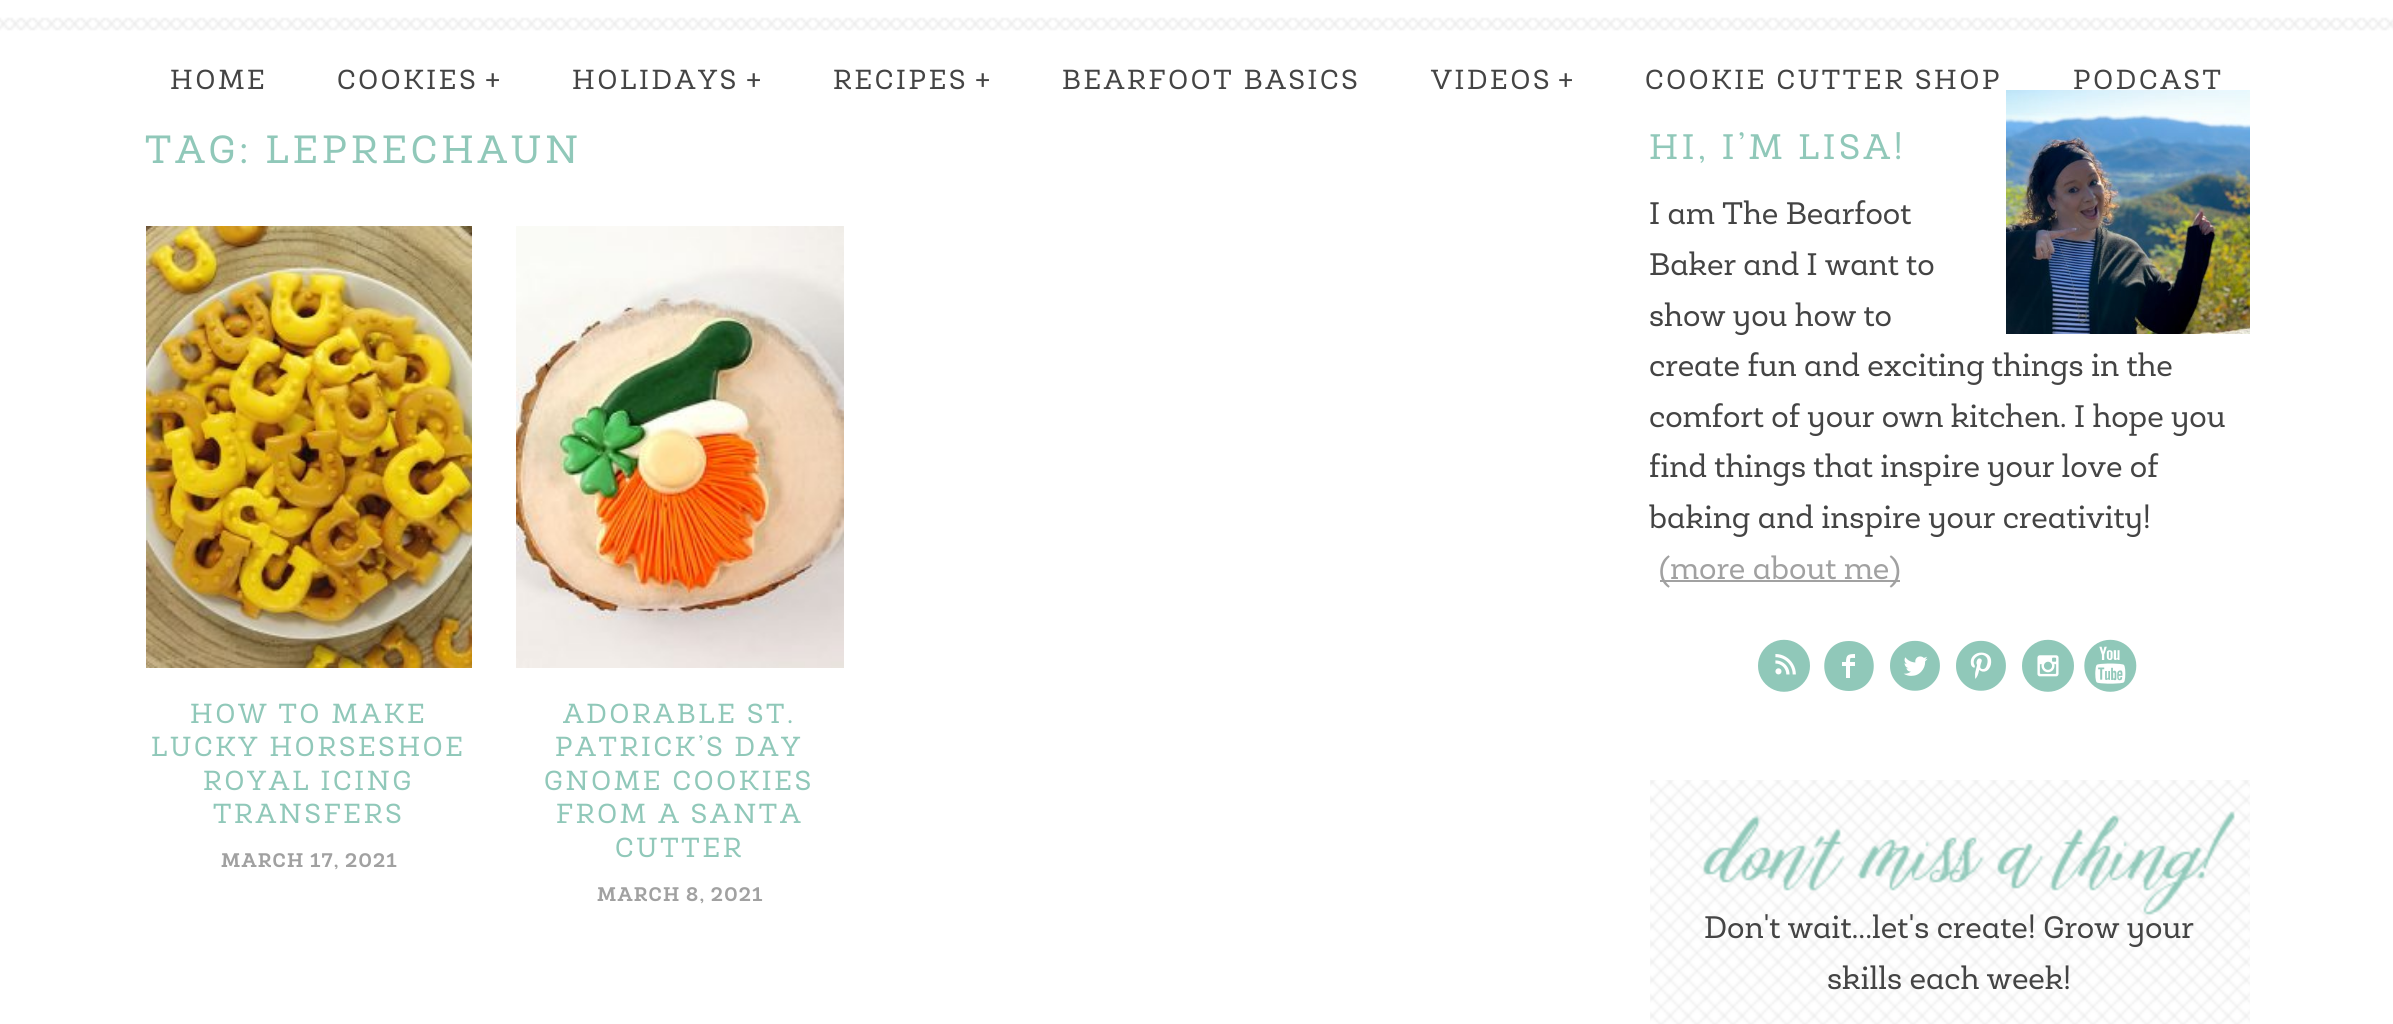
import math
import cairocffi as cairo

surface = cairo.ImageSurface(cairo.FORMAT_RGB24, 2393, 1024)
ctx = cairo.Context(surface)
options = cairo.FontOptions()
options.set_hint_metrics(cairo.HINT_METRICS_OFF)
options.set_hint_style(cairo.HINT_STYLE_NONE)
ctx.set_font_options(options)
ctx.set_miter_limit(4)


def rgb(r, g, b):
    ctx.set_source_rgb(r / 255, g / 255, b / 255)


def face(family, size, italic, bold):
    ctx.select_font_face(family, cairo.FONT_SLANT_ITALIC if italic else cairo.FONT_SLANT_NORMAL, cairo.FONT_WEIGHT_BOLD if bold else cairo.FONT_WEIGHT_NORMAL)
    ctx.set_font_size(size)


def label(x, y, s):
    ctx.move_to(x, y)
    ctx.show_text(s)


def tracked(x, y, s, letter, word):
    ctx.move_to(x, y)
    for ch in s:
        ctx.show_text(ch)
        ctx.rel_move_to(letter + word * (ch == ' '), 0)


def rect(x, y, w, h):
    ctx.rectangle(x, y, w, h)
    ctx.fill()


def image(path, x, y, w, h):
    ctx.save()
    ctx.set_source_surface(cairo.ImageSurface.create_from_png(path), x, y)
    ctx.rectangle(x, y, w, h)
    ctx.fill()
    ctx.restore()


rgb(255, 255, 255)
ctx.paint()
image('image0.png', 0, 17, 2393, 14)
face('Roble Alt', 28, 0, 0)
rgb(68, 68, 68)
tracked(170, 89, 'HOME', 2.75, 0)
tracked(337, 89, 'COOKIES', 2.75, 0)
tracked(485, 89, '+', 2.75, 0)
tracked(572, 89, 'HOLIDAYS', 2.75, 0)
tracked(746, 89, '+', 2.75, 0)
tracked(833, 89, 'RECIPES', 2.75, 0)
tracked(975, 89, '+', 2.75, 0)
tracked(1062, 89, 'BEARFOOT BASICS', 2.75, 0)
tracked(1431, 89, 'VIDEOS', 2.75, 0)
tracked(1558, 89, '+', 2.75, 0)
tracked(1645, 89, 'COOKIE CUTTER SHOP', 2.75, 0)
tracked(2073, 89, 'PODCAST', 2.75, 0)
face('Roble Alt', 40, 0, 0)
rgb(144, 200, 185)
tracked(145, 163, 'TAG: LEPRECHAUN', 4, 0)
image('image1.png', 146, 226, 326, 442)
face('Roble Alt', 28, 0, 0)
tracked(190, 723, 'HOW TO MAKE', 2.75, 0)
tracked(151, 756, 'LUCKY HORSESHOE', 2.75, 0)
tracked(203, 790, 'ROYAL ICING', 2.75, 0)
tracked(213, 823, 'TRANSFERS', 2.75, 0)
face('Roble Alt', 20, 0, 1)
rgb(161, 161, 161)
tracked(221, 867, 'MARCH 17, 2021', 1.25, 0)
image('image2.png', 516, 226, 328, 442)
face('Roble Alt', 28, 0, 0)
rgb(144, 200, 185)
tracked(563, 723, 'ADORABLE ST.', 2.75, 0)
tracked(555, 756, 'PATRICK’S DAY', 2.75, 0)
tracked(544, 790, 'GNOME COOKIES', 2.75, 0)
tracked(556, 823, 'FROM A SANTA', 2.75, 0)
tracked(615, 857, 'CUTTER', 2.75, 0)
face('Roble Alt', 20, 0, 1)
rgb(161, 161, 161)
tracked(597, 901, 'MARCH 8, 2021', 1.25, 0)
face('Roble Alt', 36, 0, 0)
rgb(144, 200, 185)
tracked(1649, 159, 'HI, I’M LISA!', 3.6, 0)
image('image3.png', 2006, 90, 244, 244)
face('Roble Alt', 31.6, 0, 0)
rgb(68, 68, 68)
label(1649, 224, 'I am The Bearfoot')
label(1649, 275, 'Baker and I want to')
label(1649, 326, 'show you how to')
label(1649, 376, 'create fun and exciting things in the')
label(1649, 427, 'comfort of your own kitchen. I hope you')
label(1649, 477, 'find things that inspire your love of')
label(1649, 528, 'baking and inspire your creativity!')
rgb(161, 161, 161)
rect(1660, 580, 240, 2)
label(1659, 579, '(more about me)')
image('image4.png', 1758, 639, 52, 53)
rgb(144, 200, 185)
ctx.new_path()
ctx.move_to(1849, 641)
ctx.curve_to(1882, 641, 1882, 691, 1849, 691)
ctx.curve_to(1816, 691, 1816, 641, 1849, 641)
ctx.close_path()
ctx.move_to(1855, 658)
ctx.line_to(1855, 654)
ctx.curve_to(1848, 654, 1846, 655, 1846, 662)
ctx.line_to(1842, 662)
ctx.line_to(1842, 666)
ctx.line_to(1846, 666)
ctx.line_to(1846, 678)
ctx.line_to(1850, 678)
ctx.line_to(1850, 666)
ctx.line_to(1855, 666)
ctx.line_to(1855, 662)
ctx.line_to(1850, 662)
ctx.curve_to(1850, 657, 1850, 658, 1855, 658)
ctx.close_path()
ctx.fill()
image('image5.png', 1890, 640, 50, 51)
image('image6.png', 1956, 640, 50, 51)
image('image7.png', 2022, 639, 52, 53)
image('image8.png', 2084, 639, 53, 53)
image('image9.png', 1650, 780, 600, 244)
image('image10.png', 1703, 811, 532, 104)
rgb(68, 68, 68)
label(1704, 938, 'Don\'t wait...let\'s create! Grow your')
label(1827, 989, 'skills each week!')
surface.write_to_png('render.png')
